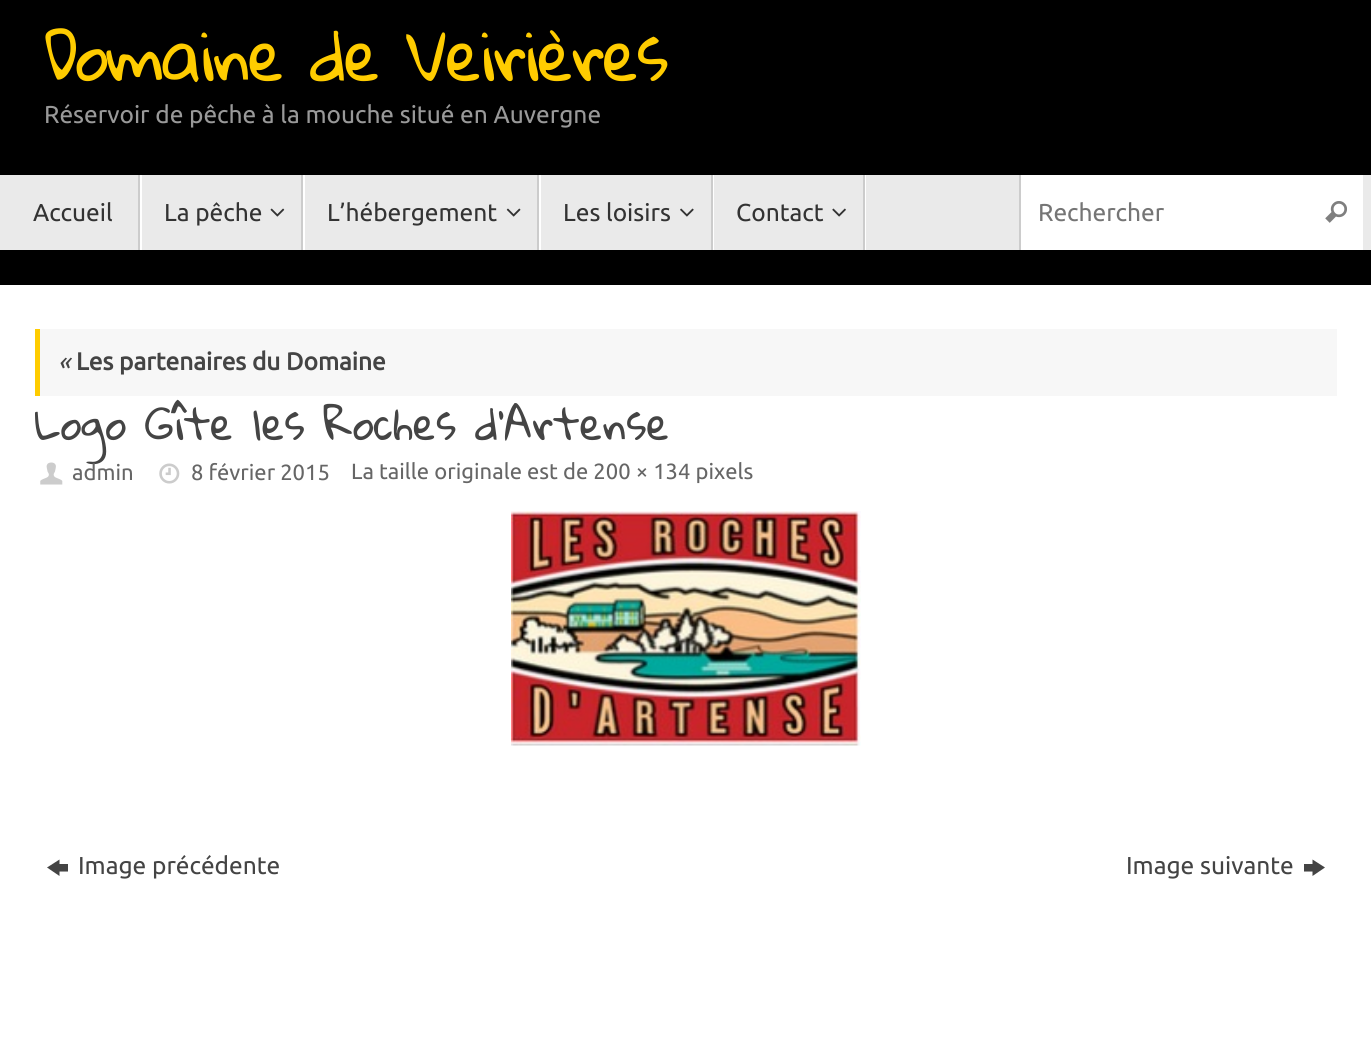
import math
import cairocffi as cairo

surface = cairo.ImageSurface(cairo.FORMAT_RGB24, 1371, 1037)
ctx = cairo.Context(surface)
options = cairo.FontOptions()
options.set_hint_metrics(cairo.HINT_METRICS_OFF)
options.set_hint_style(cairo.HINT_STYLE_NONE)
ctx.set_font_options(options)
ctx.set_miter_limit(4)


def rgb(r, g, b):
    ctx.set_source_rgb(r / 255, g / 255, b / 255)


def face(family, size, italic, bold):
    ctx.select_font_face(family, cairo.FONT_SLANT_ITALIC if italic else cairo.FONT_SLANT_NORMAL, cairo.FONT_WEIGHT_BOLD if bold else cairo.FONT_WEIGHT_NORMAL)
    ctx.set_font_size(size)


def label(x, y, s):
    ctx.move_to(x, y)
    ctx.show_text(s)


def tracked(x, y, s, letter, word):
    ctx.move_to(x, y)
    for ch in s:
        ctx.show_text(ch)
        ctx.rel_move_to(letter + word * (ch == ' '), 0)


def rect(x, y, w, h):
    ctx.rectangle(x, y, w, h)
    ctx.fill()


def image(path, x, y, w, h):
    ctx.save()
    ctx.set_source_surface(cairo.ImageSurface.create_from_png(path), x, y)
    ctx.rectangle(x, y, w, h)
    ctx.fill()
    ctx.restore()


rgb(0, 0, 0)
ctx.paint()
face('Gloria Hallelujah', 66.25, 0, 0)
rgb(255, 204, 0)
tracked(44, 81, 'Domaine de Veirières', -2, 0)
face('Ubuntu', 24.5, 0, 0)
rgb(153, 153, 153)
label(44, 123, 'Réservoir de pêche à la mouche situé en Auvergne')
rgb(234, 234, 234)
rect(0, 175, 1371, 75)
rgb(255, 255, 255)
rect(140, 175, 2, 75)
rgb(204, 204, 204)
rect(138, 175, 2, 75)
rgb(51, 51, 51)
label(33, 221, 'Accueil')
rgb(255, 255, 255)
rect(303, 175, 2, 75)
rgb(204, 204, 204)
rect(301, 175, 2, 75)
rgb(51, 51, 51)
label(164, 221, 'La pêche')
image('image0.png', 270, 208, 15, 9)
rgb(255, 255, 255)
rect(539, 175, 2, 75)
rgb(204, 204, 204)
rect(537, 175, 2, 75)
rgb(51, 51, 51)
label(327, 221, 'L’hébergement')
image('image1.png', 506, 208, 15, 9)
rgb(255, 255, 255)
rect(713, 175, 1, 75)
rgb(204, 204, 204)
rect(711, 175, 2, 75)
rgb(51, 51, 51)
label(563, 221, 'Les loisirs')
image('image2.png', 680, 208, 14, 9)
rgb(255, 255, 255)
rect(865, 175, 1, 75)
rgb(204, 204, 204)
rect(863, 175, 2, 75)
rgb(51, 51, 51)
label(736, 221, 'Contact')
image('image3.png', 832, 208, 14, 9)
rgb(255, 255, 255)
rect(1021, 175, 342, 75)
rgb(204, 204, 204)
rect(1019, 175, 2, 75)
rgb(117, 117, 117)
label(1038, 221, 'Rechercher')
image('image4.png', 1325, 201, 22, 22)
rgb(255, 255, 255)
rect(0, 285, 1371, 752)
rgb(247, 247, 247)
rect(40, 329, 1297, 67)
rgb(255, 204, 0)
rect(35, 329, 5, 67)
face('Ubuntu', 24.5, 1, 0)
rgb(68, 68, 68)
label(58, 370, '«')
face('Ubuntu', 24.5, 0, 1)
label(76, 370, 'Les partenaires du Domaine')
face('Gloria Hallelujah', 42, 0, 0)
label(35, 440, 'Logo Gîte les Roches d’Artense')
image('image5.png', 40, 462, 23, 23)
face('Ubuntu', 22, 0, 0)
rgb(102, 102, 102)
label(72, 480, 'admin')
image('image6.png', 159, 463, 21, 21)
label(191, 480, '8 février 2015')
label(351, 479, 'La taille originale est de 200 × 134 pixels')
image('image7.png', 511, 511, 350, 235)
rgb(68, 68, 68)
ctx.new_path()
ctx.move_to(47, 867.5)
ctx.line_to(59.5, 859.5)
ctx.line_to(59.5, 864)
ctx.line_to(68, 864)
ctx.line_to(68, 871.5)
ctx.line_to(59.5, 871.5)
ctx.line_to(59.5, 876)
ctx.close_path()
ctx.fill()
face('Ubuntu', 24.5, 0, 0)
label(78, 874, 'Image précédente')
label(1126, 874, 'Image suivante')
ctx.new_path()
ctx.move_to(1304, 871.5)
ctx.line_to(1304, 864)
ctx.line_to(1312.5, 864)
ctx.line_to(1312.5, 859.5)
ctx.line_to(1325, 867.5)
ctx.line_to(1312.5, 876)
ctx.line_to(1312.5, 871.5)
ctx.close_path()
ctx.fill()
surface.write_to_png('render.png')
